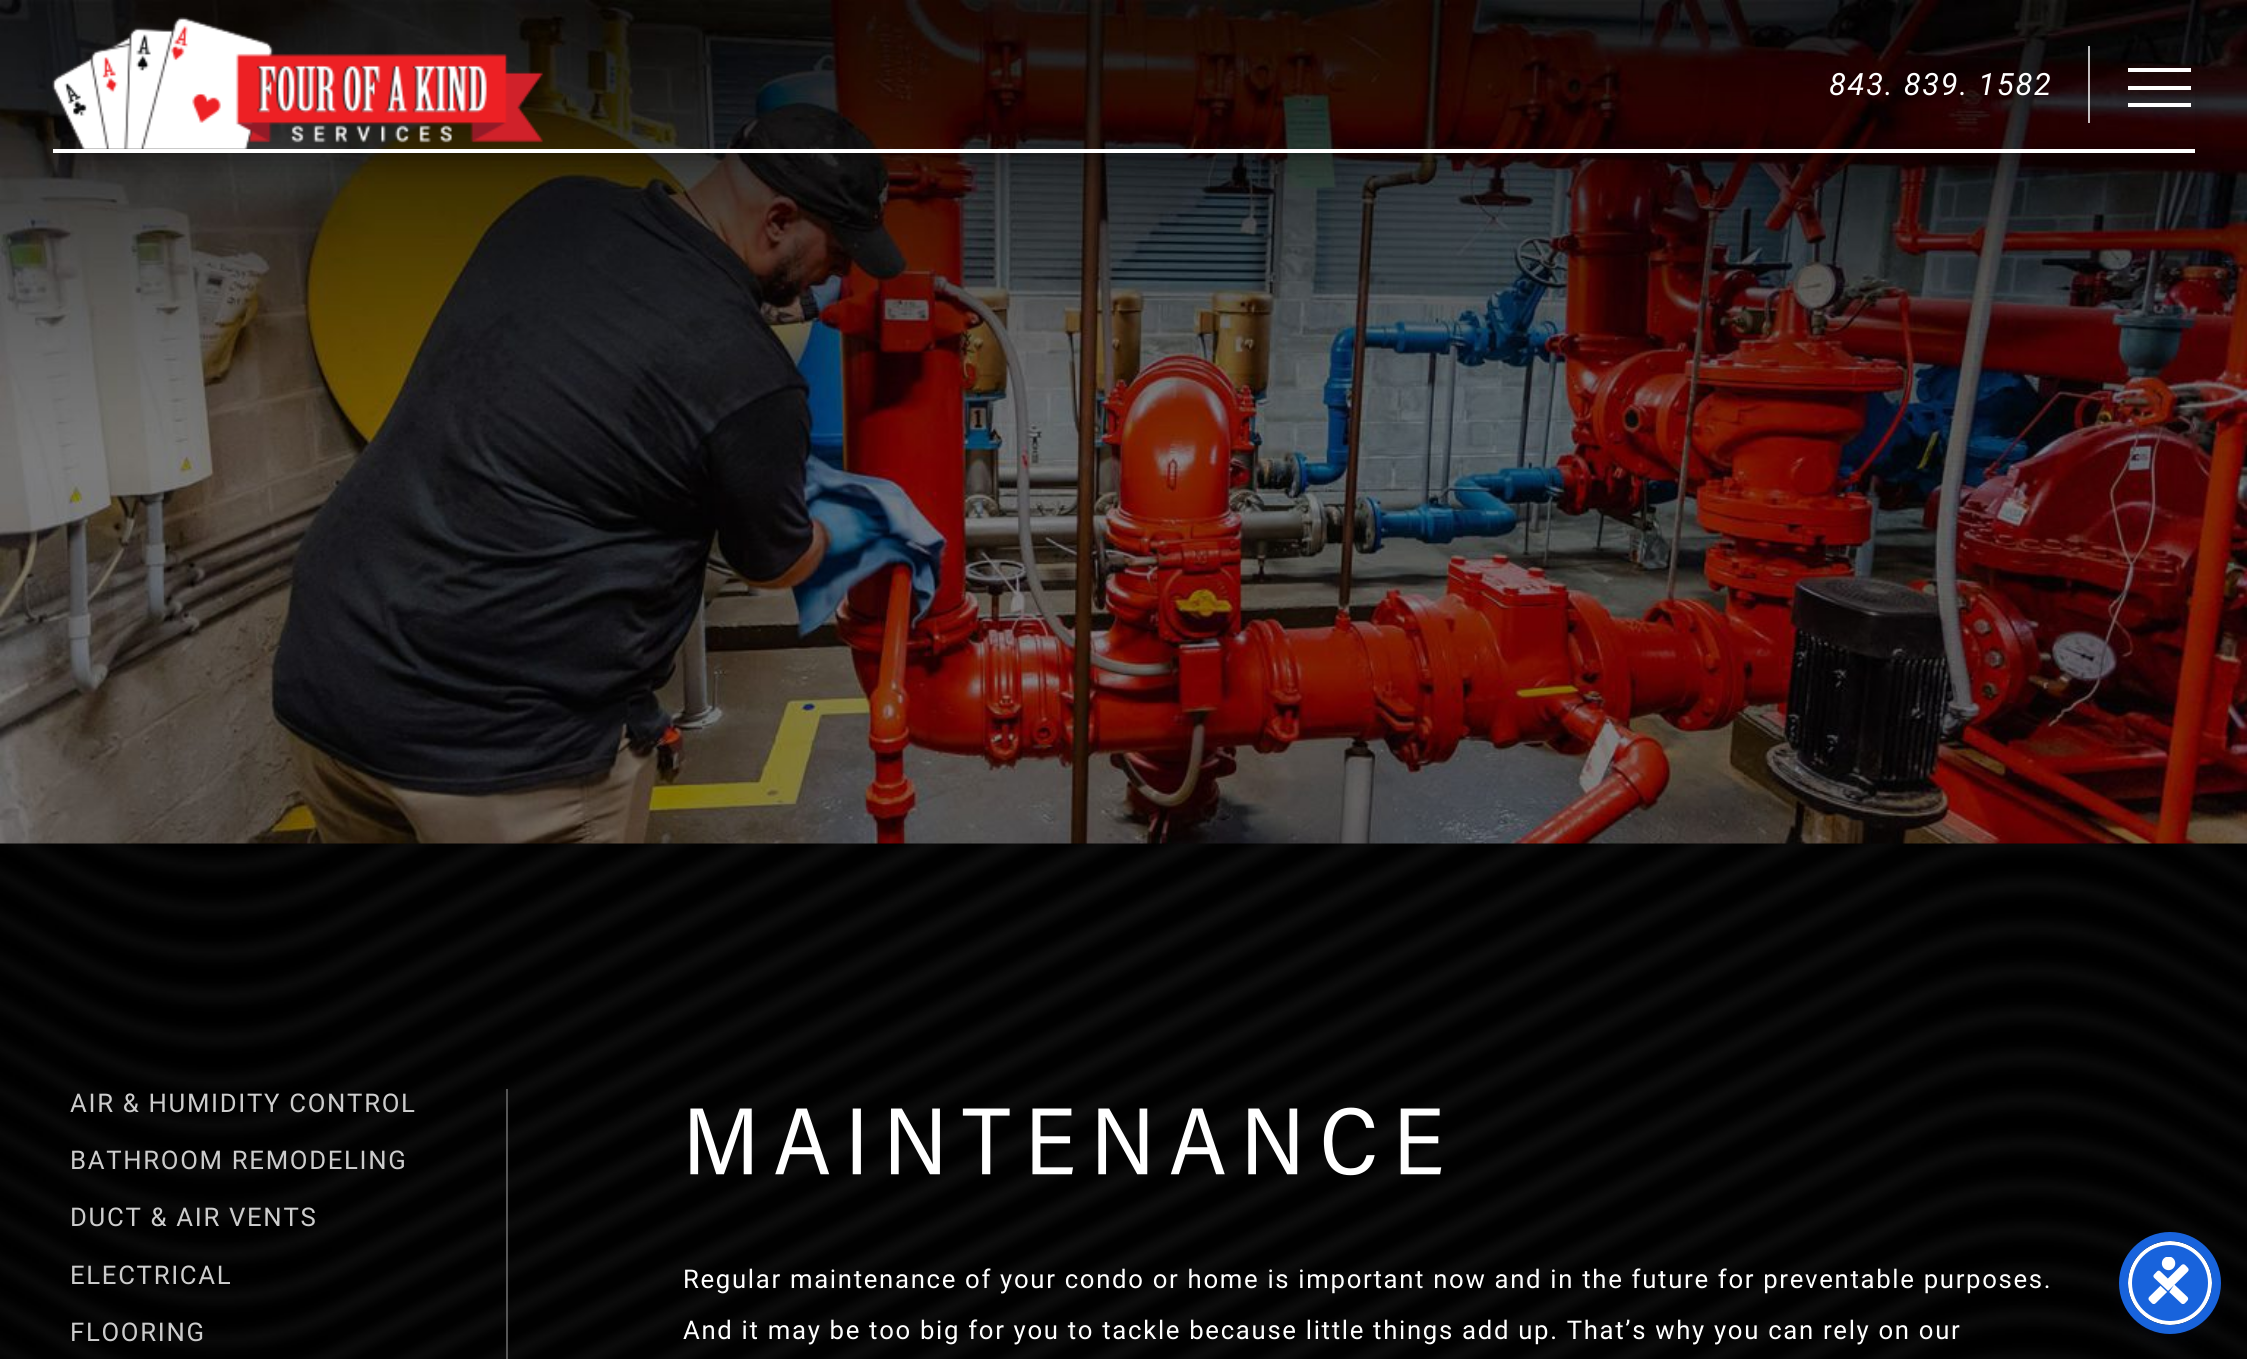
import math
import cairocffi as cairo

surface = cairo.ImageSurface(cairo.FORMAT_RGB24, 2247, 1359)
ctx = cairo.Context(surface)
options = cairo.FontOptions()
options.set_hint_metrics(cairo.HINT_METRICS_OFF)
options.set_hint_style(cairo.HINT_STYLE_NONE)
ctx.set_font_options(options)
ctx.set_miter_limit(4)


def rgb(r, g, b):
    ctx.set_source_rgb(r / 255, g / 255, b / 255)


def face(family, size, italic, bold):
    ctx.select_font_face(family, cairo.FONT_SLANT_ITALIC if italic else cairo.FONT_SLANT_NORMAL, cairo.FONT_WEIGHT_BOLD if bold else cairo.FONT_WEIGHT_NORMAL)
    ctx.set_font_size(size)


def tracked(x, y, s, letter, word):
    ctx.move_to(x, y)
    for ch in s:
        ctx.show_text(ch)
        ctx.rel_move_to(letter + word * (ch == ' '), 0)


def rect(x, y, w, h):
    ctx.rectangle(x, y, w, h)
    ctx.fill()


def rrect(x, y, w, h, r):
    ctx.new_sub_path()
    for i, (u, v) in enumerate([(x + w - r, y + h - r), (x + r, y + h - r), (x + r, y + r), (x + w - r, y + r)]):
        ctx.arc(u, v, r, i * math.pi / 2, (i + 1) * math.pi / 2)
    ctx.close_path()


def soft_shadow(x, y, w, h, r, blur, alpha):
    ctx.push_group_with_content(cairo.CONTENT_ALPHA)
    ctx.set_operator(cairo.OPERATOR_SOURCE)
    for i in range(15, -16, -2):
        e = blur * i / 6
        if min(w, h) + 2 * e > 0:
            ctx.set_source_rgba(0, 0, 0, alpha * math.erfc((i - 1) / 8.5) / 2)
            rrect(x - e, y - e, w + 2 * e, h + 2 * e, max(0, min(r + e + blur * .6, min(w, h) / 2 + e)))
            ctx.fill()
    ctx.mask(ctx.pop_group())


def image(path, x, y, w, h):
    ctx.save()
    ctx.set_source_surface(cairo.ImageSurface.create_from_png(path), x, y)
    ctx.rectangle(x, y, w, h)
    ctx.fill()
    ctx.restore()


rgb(0, 0, 0)
ctx.paint()
image('image0.png', 0, 843, 2247, 516)
image('image1.png', 0, 0, 2247, 844)
ctx.save()
ctx.set_fill_rule(cairo.FILL_RULE_EVEN_ODD)
ctx.new_path()
ctx.move_to(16, 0)
ctx.line_to(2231, 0)
ctx.line_to(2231, 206)
ctx.line_to(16, 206)
ctx.close_path()
ctx.move_to(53, 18)
ctx.line_to(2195, 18)
ctx.line_to(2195, 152)
ctx.line_to(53, 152)
ctx.close_path()
ctx.clip()
soft_shadow(70, 53, 2107, 99, 0, 17.5, 0.5)
ctx.restore()
rgb(255, 255, 255)
rect(53, 149, 2142, 4)
image('image2.png', 52, 17, 491, 132)
ctx.set_source_rgba(1, 1, 1, 0.75)
rect(2088, 46, 2, 77)
face('Roboto', 30.75, 1, 0)
rgb(255, 255, 255)
tracked(1829, 95, '843. 839. 1582', 1.68, 0)
rect(2128, 86, 63, 4)
rect(2128, 68, 63, 4)
rect(2128, 103, 63, 4)
rgb(85, 85, 85)
rect(506, 1089, 2, 270)
face('Roboto', 25.75, 0, 0)
rgb(204, 204, 204)
tracked(70, 1112, 'AIR & HUMIDITY CONTROL', 1.68, 0)
tracked(70, 1169, 'BATHROOM REMODELING', 1.68, 0)
tracked(70, 1226, 'DUCT & AIR VENTS', 1.68, 0)
tracked(70, 1284, 'ELECTRICAL', 1.68, 0)
tracked(70, 1341, 'FLOORING', 1.68, 0)
image('image3.png', 690, 1107, 752, 69)
rgb(255, 255, 255)
tracked(683, 1288, 'Regular maintenance of your condo or home is important now and in the future for preventable purposes.', 1.68, 0)
tracked(683, 1339, 'And it may be too big for you to tackle because little things add up. That’s why you can rely on our', 1.68, 0)
rgb(93, 100, 148)
soft_shadow(2128, 1244, 84, 84, 42, 3.5, 0.2)
rgb(37, 44, 97)
soft_shadow(2128, 1250, 84, 84, 42, 13, 0.15)
rgb(24, 99, 220)
ctx.arc(2170, 1283, 40, 0, 2 * math.pi)
ctx.fill_preserve()
rgb(255, 255, 255)
ctx.set_line_width(4)
ctx.stroke()
ctx.arc(2170, 1283, 46.5, 0, 2 * math.pi)
rgb(24, 99, 220)
ctx.set_line_width(9)
ctx.stroke()
image('image4.png', 2148, 1257, 41, 47)
surface.write_to_png('render.png')
